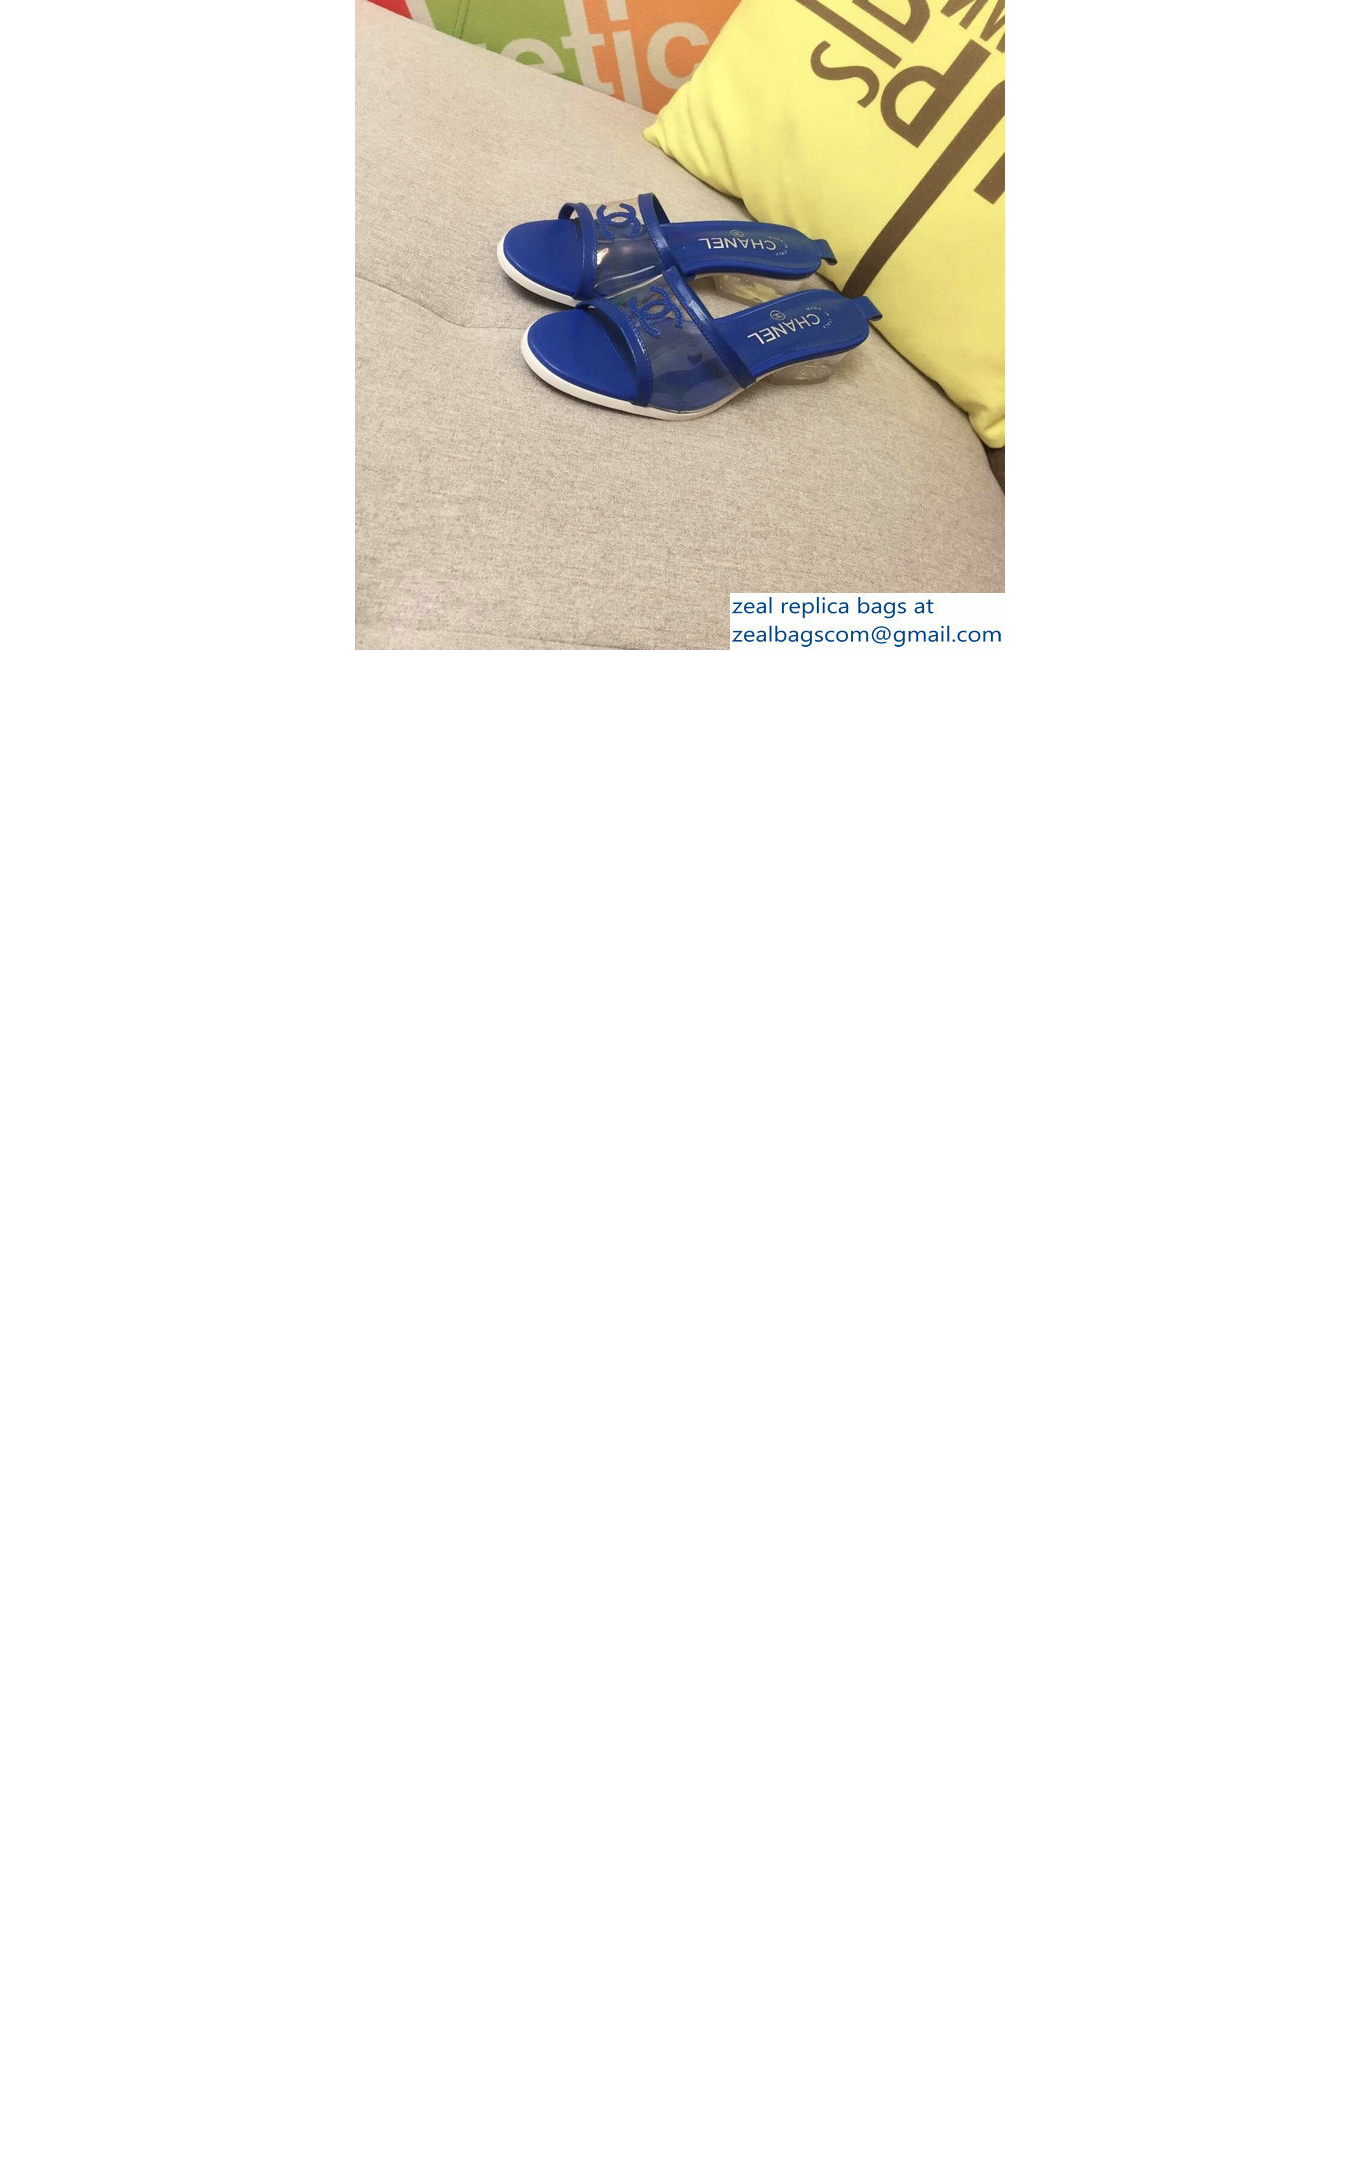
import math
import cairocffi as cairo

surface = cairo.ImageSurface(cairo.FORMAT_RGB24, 1359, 2175)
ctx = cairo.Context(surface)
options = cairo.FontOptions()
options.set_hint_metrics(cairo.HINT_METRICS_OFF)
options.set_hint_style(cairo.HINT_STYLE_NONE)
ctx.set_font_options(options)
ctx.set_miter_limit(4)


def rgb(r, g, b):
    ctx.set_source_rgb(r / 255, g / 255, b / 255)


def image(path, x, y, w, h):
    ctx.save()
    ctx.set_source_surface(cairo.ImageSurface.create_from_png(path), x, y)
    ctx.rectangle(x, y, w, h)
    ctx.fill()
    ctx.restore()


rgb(255, 255, 255)
ctx.paint()
image('image0.png', 355, 0, 650, 650)
surface.write_to_png('render.png')
